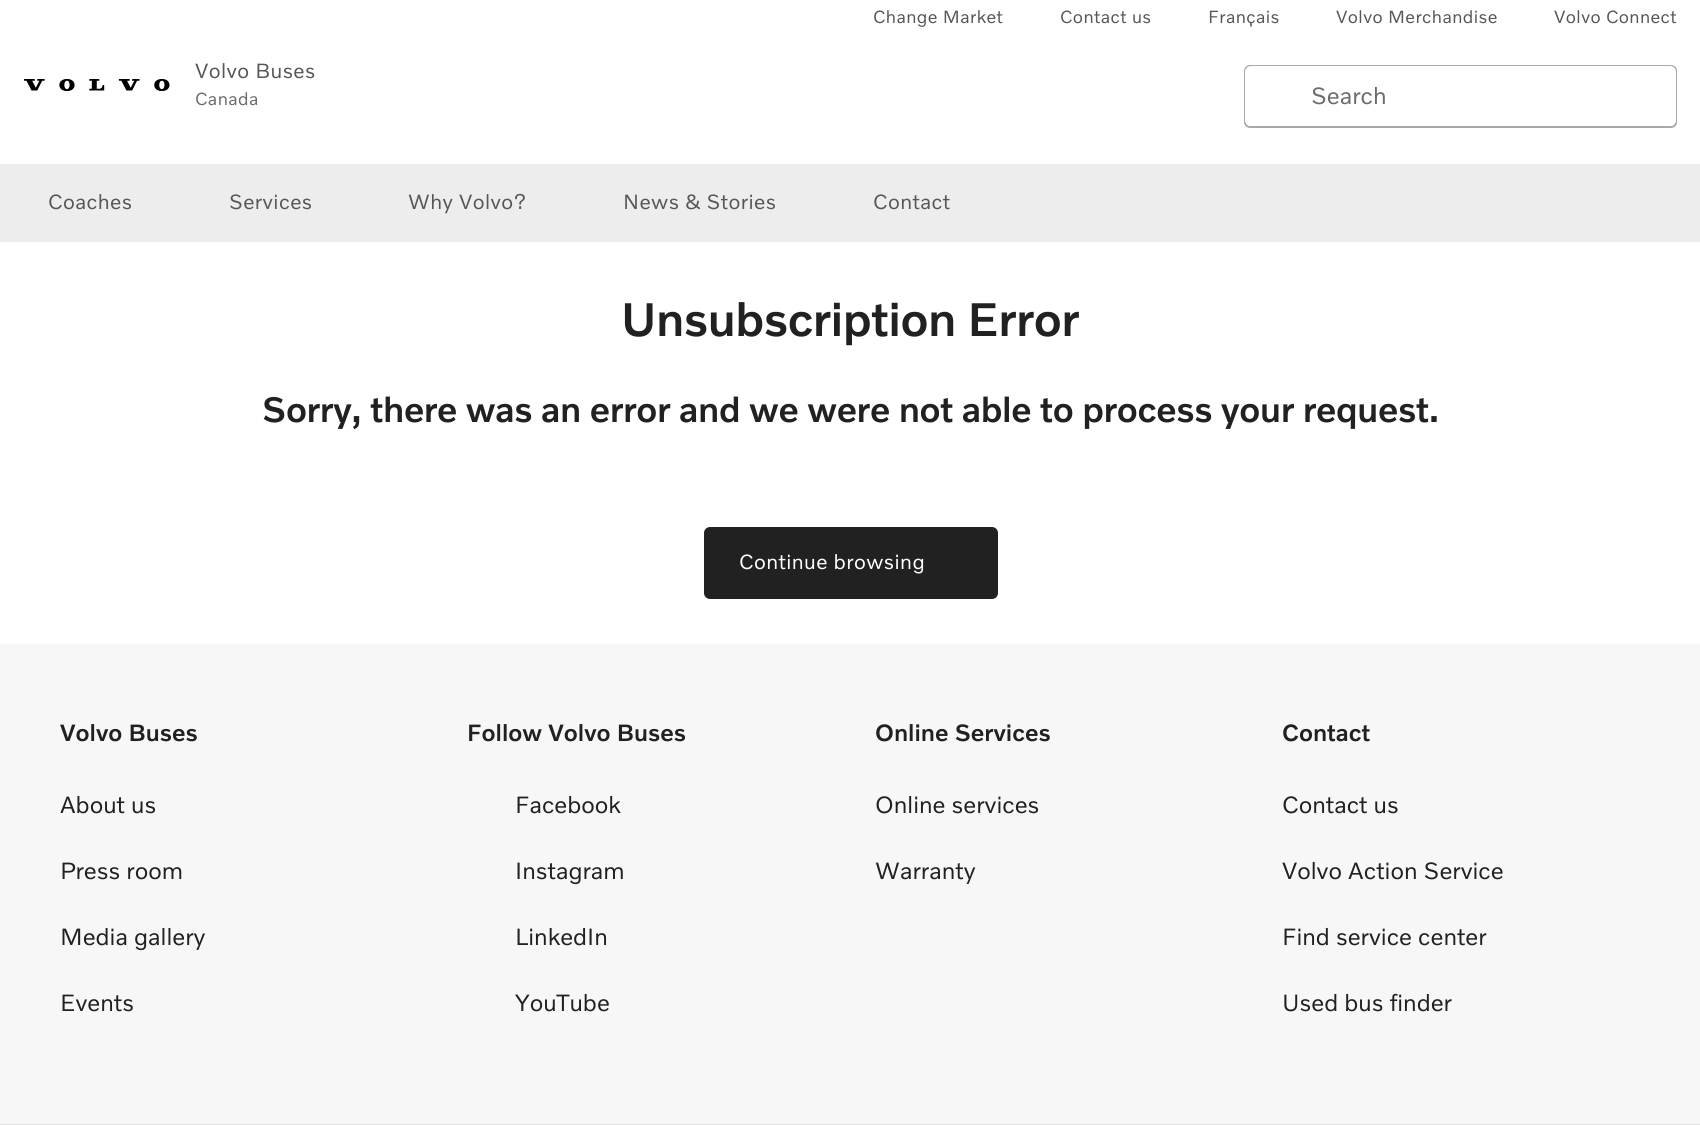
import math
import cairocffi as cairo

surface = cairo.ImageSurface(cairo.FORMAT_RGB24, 1700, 1125)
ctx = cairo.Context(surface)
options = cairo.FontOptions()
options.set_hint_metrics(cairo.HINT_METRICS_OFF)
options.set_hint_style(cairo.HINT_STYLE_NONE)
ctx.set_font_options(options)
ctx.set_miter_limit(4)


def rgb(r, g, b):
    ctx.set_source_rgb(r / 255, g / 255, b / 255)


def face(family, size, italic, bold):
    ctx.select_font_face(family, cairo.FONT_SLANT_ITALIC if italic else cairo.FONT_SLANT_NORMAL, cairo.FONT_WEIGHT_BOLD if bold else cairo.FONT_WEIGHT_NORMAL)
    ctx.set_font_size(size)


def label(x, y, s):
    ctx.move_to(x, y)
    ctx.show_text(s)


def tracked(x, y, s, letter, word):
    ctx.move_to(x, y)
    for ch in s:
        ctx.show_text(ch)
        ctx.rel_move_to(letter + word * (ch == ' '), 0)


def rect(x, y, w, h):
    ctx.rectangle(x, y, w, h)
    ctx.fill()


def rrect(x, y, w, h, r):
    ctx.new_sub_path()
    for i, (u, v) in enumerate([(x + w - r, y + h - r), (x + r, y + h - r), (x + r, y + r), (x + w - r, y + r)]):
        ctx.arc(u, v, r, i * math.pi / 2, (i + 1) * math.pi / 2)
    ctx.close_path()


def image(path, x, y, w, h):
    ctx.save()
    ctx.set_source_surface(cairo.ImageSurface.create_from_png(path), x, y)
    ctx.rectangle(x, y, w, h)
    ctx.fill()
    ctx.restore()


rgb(255, 255, 255)
ctx.paint()
face('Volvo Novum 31', 18, 0, 0)
rgb(87, 87, 87)
tracked(873, 23, 'Change Market', 0.4, 0)
tracked(1060, 23, 'Contact us', 0.4, 0)
tracked(1208, 23, 'Français', 0.4, 0)
tracked(1336, 23, 'Volvo Merchandise', 0.4, 0)
tracked(1554, 23, 'Volvo Connect', 0.4, 0)
image('image0.png', 24, 79, 146, 12)
face('Volvo Novum 31', 21, 0, 0)
tracked(195, 78, 'Volvo Buses', 0.4, 0)
face('Volvo Novum 31', 18, 0, 0)
rgb(107, 107, 107)
tracked(195, 105, 'Canada', 0.4, 0)
rrect(1245, 66, 431, 61, 5)
rgb(169, 169, 169)
ctx.stroke()
rgb(255, 255, 255)
rrect(1245, 66, 431, 60, 6)
ctx.fill()
face('Volvo Novum 31', 24, 0, 0)
rgb(107, 107, 107)
label(1311, 104, 'Search')
rgb(237, 237, 237)
rect(0, 164, 1700, 78)
face('Volvo Novum 31', 21, 0, 0)
rgb(87, 87, 87)
tracked(48, 209, 'Coaches', 0.4, 0)
tracked(229, 209, 'Services', 0.4, 0)
tracked(408, 209, 'Why Volvo?', 0.4, 0)
tracked(623, 209, 'News & Stories', 0.4, 0)
tracked(873, 209, 'Contact', 0.4, 0)
face('Volvo Novum 31', 48, 0, 1)
rgb(33, 33, 33)
tracked(621, 336, 'Unsubscription Error', -0.5, 0)
face('Volvo Novum 31', 36, 0, 1)
tracked(262, 422, 'Sorry, there was an error and we were not able to process your request.', -0.35, 0)
rrect(704, 527, 294, 72, 6)
ctx.fill()
face('Volvo Novum 31', 21, 0, 0)
rgb(255, 255, 255)
tracked(739, 569, 'Continue browsing', 0.4, 0)
rgb(247, 247, 247)
rect(0, 644, 1700, 480)
face('Volvo Novum 31', 24, 0, 1)
rgb(33, 33, 33)
label(60, 741, 'Volvo Buses')
face('Volvo Novum 31', 24, 0, 0)
label(60, 813, 'About us')
label(60, 879, 'Press room')
label(60, 945, 'Media gallery')
label(60, 1011, 'Events')
face('Volvo Novum 31', 24, 0, 1)
label(467, 741, 'Follow Volvo Buses')
face('Volvo Novum 31', 24, 0, 0)
label(515, 813, 'Facebook')
label(515, 879, 'Instagram')
label(515, 945, 'LinkedIn')
label(515, 1011, 'YouTube')
face('Volvo Novum 31', 24, 0, 1)
label(875, 741, 'Online Services')
face('Volvo Novum 31', 24, 0, 0)
label(875, 813, 'Online services')
label(875, 879, 'Warranty')
face('Volvo Novum 31', 24, 0, 1)
label(1282, 741, 'Contact')
face('Volvo Novum 31', 24, 0, 0)
label(1282, 813, 'Contact us')
label(1282, 879, 'Volvo Action Service')
label(1282, 945, 'Find service center')
label(1282, 1011, 'Used bus finder')
rgb(225, 225, 225)
rect(0, 1124, 1700, 1)
surface.write_to_png('render.png')
